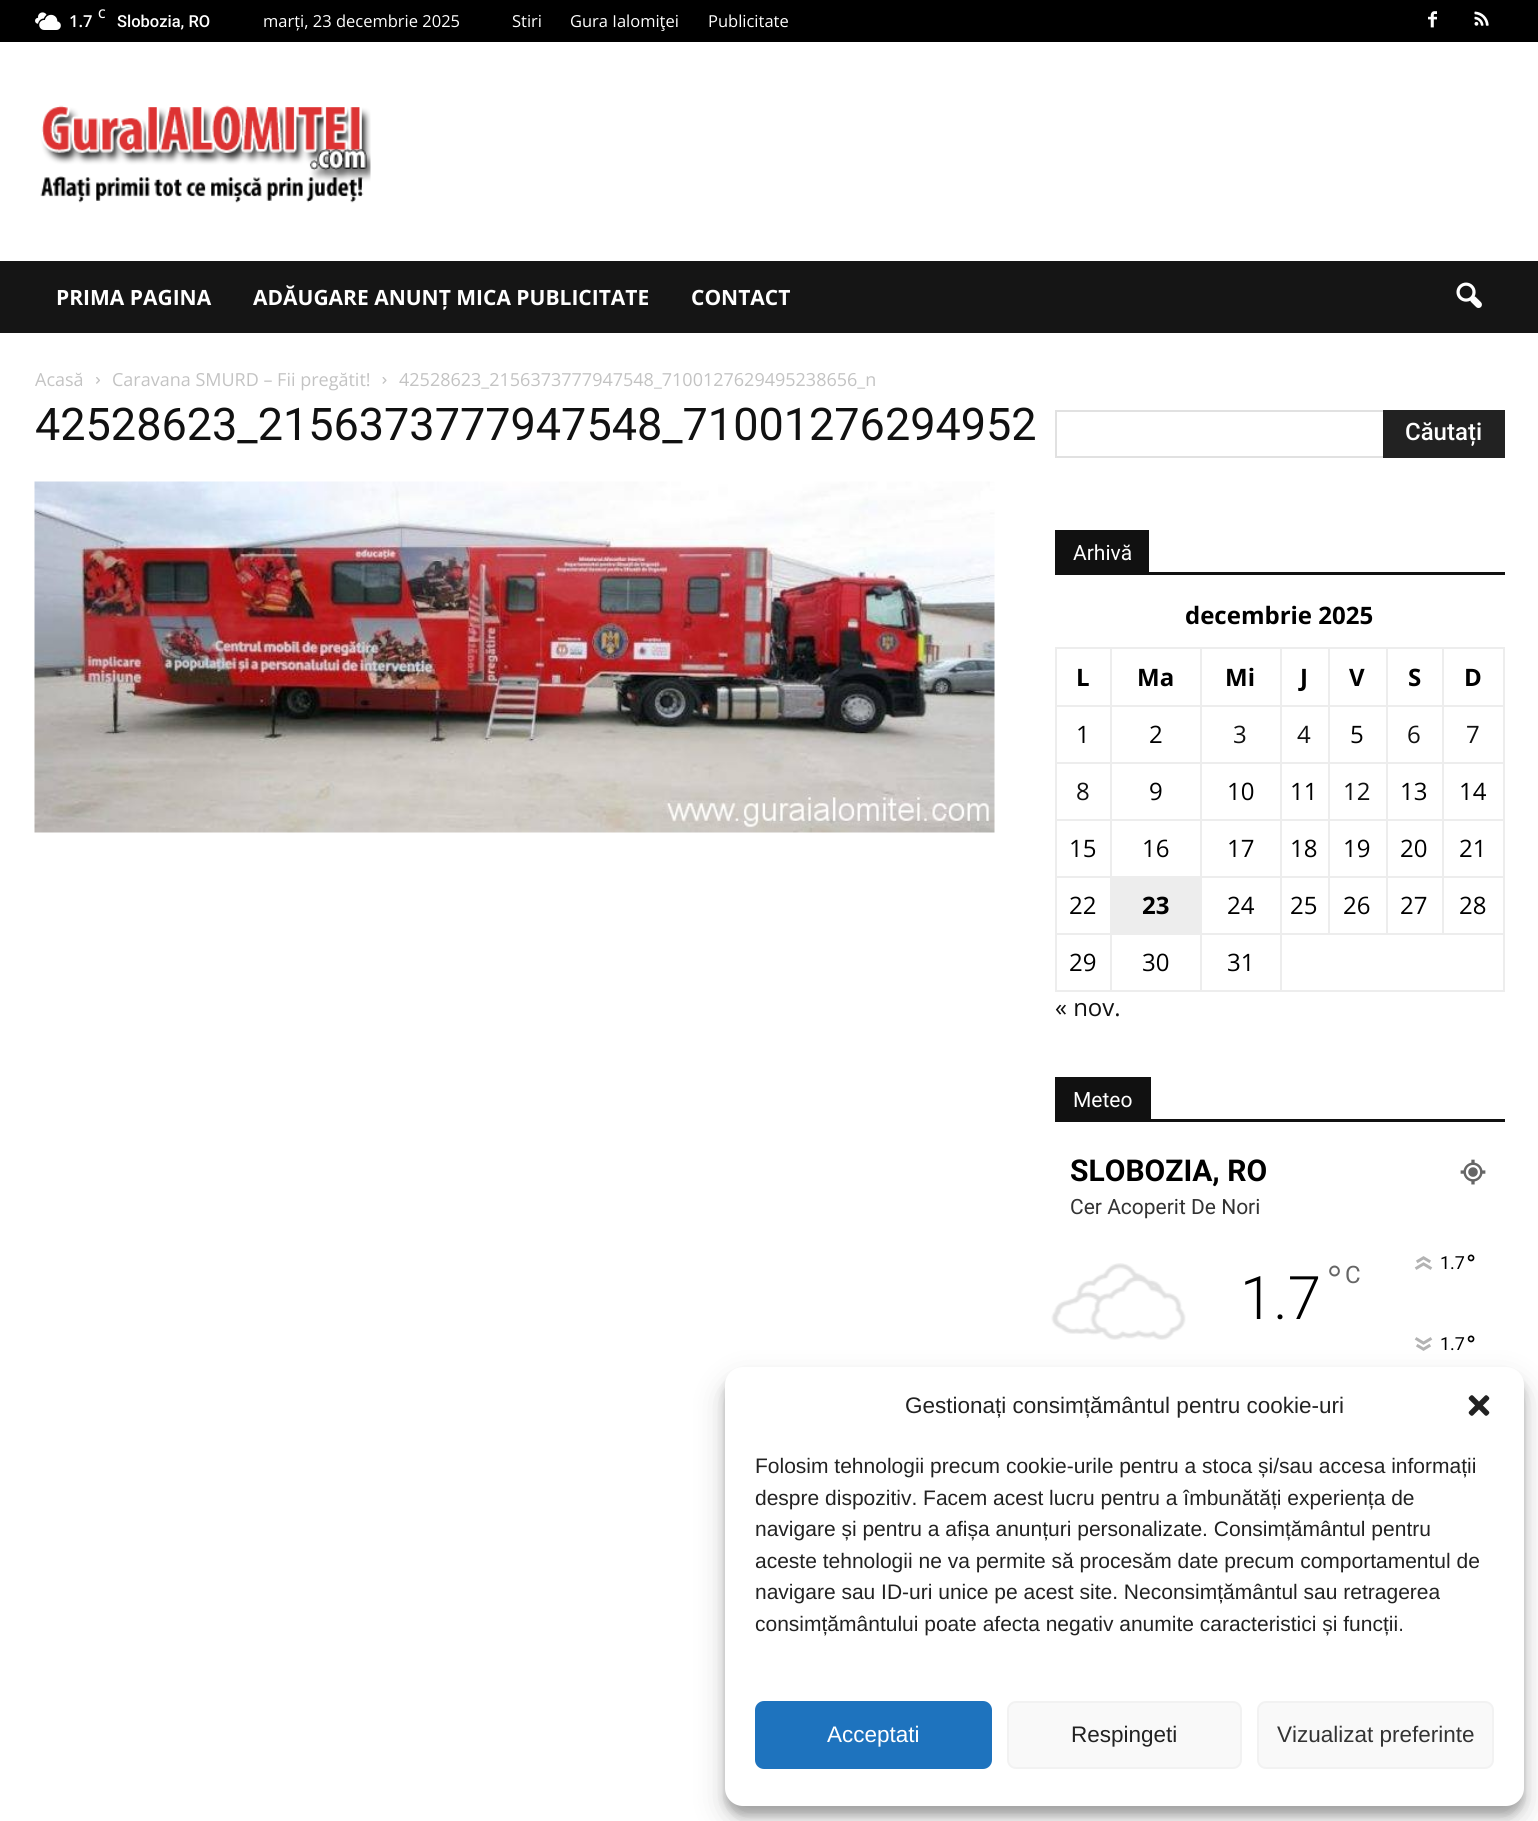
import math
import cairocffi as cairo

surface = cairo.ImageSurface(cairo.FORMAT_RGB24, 1538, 1821)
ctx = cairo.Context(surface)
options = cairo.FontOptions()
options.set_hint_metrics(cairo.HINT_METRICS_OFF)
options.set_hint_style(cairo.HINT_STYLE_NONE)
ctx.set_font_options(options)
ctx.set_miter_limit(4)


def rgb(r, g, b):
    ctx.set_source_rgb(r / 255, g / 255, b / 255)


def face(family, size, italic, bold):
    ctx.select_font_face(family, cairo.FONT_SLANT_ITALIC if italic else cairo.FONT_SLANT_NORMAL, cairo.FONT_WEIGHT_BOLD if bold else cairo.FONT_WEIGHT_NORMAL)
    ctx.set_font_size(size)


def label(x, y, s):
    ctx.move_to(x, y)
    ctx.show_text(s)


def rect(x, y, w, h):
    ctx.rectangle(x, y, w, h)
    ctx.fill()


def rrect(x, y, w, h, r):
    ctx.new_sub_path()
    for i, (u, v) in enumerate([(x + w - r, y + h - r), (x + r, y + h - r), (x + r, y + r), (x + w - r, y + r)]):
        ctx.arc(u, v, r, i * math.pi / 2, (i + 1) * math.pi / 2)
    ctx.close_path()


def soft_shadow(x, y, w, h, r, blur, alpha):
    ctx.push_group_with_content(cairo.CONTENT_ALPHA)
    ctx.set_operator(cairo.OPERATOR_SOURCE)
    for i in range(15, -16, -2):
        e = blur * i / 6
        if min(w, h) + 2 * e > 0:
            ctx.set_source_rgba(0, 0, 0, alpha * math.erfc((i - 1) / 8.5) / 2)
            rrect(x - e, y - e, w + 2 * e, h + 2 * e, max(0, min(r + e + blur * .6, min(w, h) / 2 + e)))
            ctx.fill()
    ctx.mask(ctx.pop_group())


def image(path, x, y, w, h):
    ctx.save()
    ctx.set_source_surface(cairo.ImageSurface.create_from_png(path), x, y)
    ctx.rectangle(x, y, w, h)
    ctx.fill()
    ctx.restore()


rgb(255, 255, 255)
ctx.paint()
rgb(0, 0, 0)
rect(0, 0, 1538, 42)
image('image0.png', 35, 12, 26, 18)
face('Open Sans SemiBold', 12, 0, 0)
rgb(255, 255, 255)
label(98, 18, 'C')
face('Open Sans SemiBold', 16.5, 0, 0)
label(69, 27, '1.7')
face('Roboto Medium', 16.5, 0, 0)
label(117, 27, 'Slobozia, RO')
face('Open Sans', 16.5, 0, 0)
label(263, 27, 'marți, 23 decembrie 2025')
label(512, 27, 'Stiri')
label(570, 27, 'Gura Ialomiţei')
label(708, 27, 'Publicitate')
image('image1.png', 1428, 11, 9, 17)
image('image2.png', 1474, 11, 15, 15)
image('image3.png', 40, 105, 331, 98)
rgb(21, 21, 21)
rect(0, 261, 1538, 72)
face('Open Sans', 21, 0, 1)
rgb(255, 255, 255)
label(56, 305, 'PRIMA PAGINA')
label(253, 305, 'ADĂUGARE ANUNȚ MICA PUBLICITATE')
label(691, 305, 'CONTACT')
image('image4.png', 1456, 282, 26, 26)
face('Open Sans', 18, 0, 0)
rgb(195, 195, 195)
label(35, 386, 'Acasă')
image('image5.png', 96, 377, 4, 7)
label(112, 386, 'Caravana SMURD – Fii pregătit!')
image('image6.png', 382, 377, 5, 7)
label(399, 386, '42528623_2156373777947548_7100127629495238656_n')
face('Roboto', 45, 0, 0)
rgb(17, 17, 17)
label(35, 440, '42528623_2156373777947548_71001276294952')
image('image7.png', 34, 481, 961, 352)
rgb(225, 225, 225)
rect(1055, 410, 328, 2)
rect(1055, 456, 328, 2)
rect(1055, 410, 2, 48)
rgb(34, 34, 34)
rect(1383, 410, 122, 48)
face('Roboto Medium', 24, 0, 0)
rgb(255, 255, 255)
label(1405, 440, 'Căutați')
rgb(17, 17, 17)
rect(1055, 572, 450, 3)
rect(1055, 530, 94, 42)
face('Roboto', 21, 0, 0)
rgb(255, 255, 255)
label(1073, 560, 'Arhivă')
face('Open Sans', 24, 0, 1)
rgb(0, 0, 0)
label(1185, 624, 'decembrie 2025')
rgb(237, 237, 237)
rect(1442, 647, 63, 2)
rect(1442, 705, 63, 2)
rect(1442, 762, 63, 2)
rect(1442, 819, 63, 2)
rect(1442, 876, 63, 2)
rect(1280, 933, 225, 2)
rect(1442, 876, 2, 59)
rect(1386, 876, 57, 2)
rect(1442, 819, 2, 59)
rect(1386, 819, 57, 2)
rect(1442, 762, 2, 59)
rect(1386, 762, 57, 2)
rect(1442, 705, 2, 59)
rect(1386, 705, 57, 2)
rect(1442, 647, 2, 60)
rect(1386, 647, 57, 2)
rect(1386, 876, 2, 59)
rect(1328, 876, 60, 2)
rect(1386, 819, 2, 59)
rect(1328, 819, 60, 2)
rect(1386, 762, 2, 59)
rect(1328, 762, 60, 2)
rect(1386, 705, 2, 59)
rect(1328, 705, 60, 2)
rect(1386, 647, 2, 60)
rect(1328, 647, 60, 2)
rect(1328, 876, 2, 59)
rect(1280, 876, 49, 2)
rect(1328, 819, 2, 59)
rect(1280, 819, 49, 2)
rect(1328, 762, 2, 59)
rect(1280, 762, 49, 2)
rect(1328, 705, 2, 59)
rect(1280, 705, 49, 2)
rect(1328, 647, 2, 60)
rect(1280, 647, 49, 2)
rect(1503, 933, 2, 59)
rect(1280, 990, 225, 2)
rect(1280, 933, 2, 59)
rect(1200, 933, 81, 2)
rect(1280, 876, 2, 59)
rect(1200, 876, 81, 2)
rect(1280, 819, 2, 59)
rect(1200, 819, 81, 2)
rect(1280, 762, 2, 59)
rect(1200, 762, 81, 2)
rect(1280, 705, 2, 59)
rect(1200, 705, 81, 2)
rect(1280, 647, 2, 60)
rect(1200, 647, 81, 2)
rect(1200, 990, 81, 2)
rect(1200, 933, 2, 59)
rect(1110, 933, 92, 2)
rect(1200, 876, 2, 59)
rect(1110, 876, 92, 2)
rect(1200, 819, 2, 59)
rect(1110, 819, 92, 2)
rect(1200, 762, 2, 59)
rect(1110, 762, 92, 2)
rect(1200, 705, 2, 59)
rect(1110, 705, 92, 2)
rect(1200, 647, 2, 60)
rect(1110, 647, 92, 2)
rect(1110, 990, 92, 2)
rect(1110, 933, 2, 59)
rect(1055, 933, 57, 2)
rect(1110, 876, 2, 59)
rect(1055, 876, 57, 2)
rect(1110, 819, 2, 59)
rect(1055, 819, 57, 2)
rect(1110, 762, 2, 59)
rect(1055, 762, 57, 2)
rect(1110, 705, 2, 59)
rect(1055, 705, 57, 2)
rect(1110, 647, 2, 60)
rect(1055, 647, 57, 2)
rect(1055, 990, 57, 2)
rect(1055, 933, 2, 59)
rect(1055, 876, 2, 59)
rect(1055, 819, 2, 59)
rect(1055, 762, 2, 59)
rect(1055, 705, 2, 59)
rect(1055, 647, 2, 60)
rgb(0, 0, 0)
label(1076, 686, 'L')
label(1137, 686, 'Ma')
label(1225, 686, 'Mi')
label(1300, 686, 'J')
label(1349, 686, 'V')
label(1408, 686, 'S')
rgb(237, 237, 237)
rect(1503, 876, 2, 59)
rect(1503, 819, 2, 59)
rect(1503, 762, 2, 59)
rect(1503, 705, 2, 59)
rect(1503, 647, 2, 60)
rgb(0, 0, 0)
label(1464, 686, 'D')
face('Open Sans', 24, 0, 0)
label(1076, 743, '1')
label(1149, 743, '2')
rgb(17, 17, 17)
label(1233, 743, '3')
label(1297, 743, '4')
rgb(0, 0, 0)
label(1350, 743, '5')
rgb(17, 17, 17)
label(1407, 743, '6')
label(1466, 743, '7')
label(1076, 800, '8')
rgb(0, 0, 0)
label(1149, 800, '9')
label(1227, 800, '10')
label(1290, 800, '11')
rgb(17, 17, 17)
label(1343, 800, '12')
rgb(0, 0, 0)
label(1400, 800, '13')
label(1459, 800, '14')
label(1069, 857, '15')
label(1142, 857, '16')
label(1227, 857, '17')
label(1290, 857, '18')
label(1343, 857, '19')
label(1400, 857, '20')
label(1459, 857, '21')
label(1069, 914, '22')
rgb(237, 237, 237)
rect(1112, 878, 88, 55)
face('Open Sans', 24, 0, 1)
rgb(0, 0, 0)
label(1142, 914, '23')
face('Open Sans', 24, 0, 0)
label(1227, 914, '24')
label(1290, 914, '25')
label(1343, 914, '26')
label(1400, 914, '27')
label(1459, 914, '28')
label(1069, 971, '29')
label(1142, 971, '30')
label(1227, 971, '31')
rgb(17, 17, 17)
label(1055, 1016, '« nov.')
rect(1055, 1119, 450, 3)
rect(1055, 1077, 96, 42)
face('Roboto', 21, 0, 0)
rgb(255, 255, 255)
label(1073, 1107, 'Meteo')
face('Roboto', 30, 0, 1)
rgb(0, 0, 0)
label(1070, 1181, 'SLOBOZIA, RO')
image('image8.png', 1460, 1159, 26, 26)
face('Roboto', 21, 0, 0)
rgb(51, 51, 51)
label(1070, 1214, 'Cer Acoperit De Nori')
image('image9.png', 1051, 1263, 135, 77)
face('Roboto Light', 60, 0, 0)
rgb(0, 0, 0)
label(1240, 1319, '1.7')
face('Roboto Light', 45, 0, 0)
rgb(102, 102, 102)
label(1326, 1298, '°')
face('Roboto', 24, 0, 0)
label(1345, 1283, 'C')
image('image10.png', 1414, 1256, 19, 14)
face('Roboto', 18, 0, 0)
rgb(0, 0, 0)
label(1440, 1269, '1.7')
face('Roboto', 27, 0, 0)
label(1466, 1274, '°')
image('image11.png', 1414, 1337, 19, 14)
face('Roboto', 18, 0, 0)
label(1440, 1350, '1.7')
face('Roboto', 27, 0, 0)
label(1466, 1355, '°')
rgb(0, 0, 0)
soft_shadow(725, 1376, 799, 439, 18, 4.5, 0.23)
soft_shadow(725, 1382, 799, 439, 18, 15, 0.19)
rgb(255, 255, 255)
rrect(725, 1367, 799, 439, 18)
ctx.fill()
face('Liberation Sans', 22.5, 0, 0)
rgb(34, 34, 34)
label(905, 1413, 'Gestionați consimțământul pentru cookie-uri')
image('image12.png', 1468, 1395, 22, 21)
face('Liberation Sans', 21, 0, 0)
label(755, 1473, 'Folosim tehnologii precum cookie-urile pentru a stoca și/sau accesa informații')
label(755, 1505, 'despre dispozitiv. Facem acest lucru pentru a îmbunătăți experiența de')
label(755, 1536, 'navigare și pentru a afișa anunțuri personalizate. Consimțământul pentru')
label(755, 1568, 'aceste tehnologii ne va permite să procesăm date precum comportamentul de')
label(755, 1599, 'navigare sau ID-uri unice pe acest site. Neconsimțământul sau retragerea')
label(755, 1631, 'consimțământului poate afecta negativ anumite caracteristici și funcții.')
rgb(30, 115, 190)
rrect(756, 1702, 235, 66, 8)
ctx.fill_preserve()
ctx.stroke()
face('Liberation Sans', 22.5, 0, 0)
rgb(255, 255, 255)
label(827, 1742, 'Acceptati')
rgb(249, 249, 249)
rrect(1008, 1702, 233, 66, 8)
ctx.fill_preserve()
rgb(242, 242, 242)
ctx.stroke()
rgb(34, 34, 34)
label(1071, 1742, 'Respingeti')
rgb(249, 249, 249)
rrect(1258, 1702, 235, 66, 8)
ctx.fill_preserve()
rgb(242, 242, 242)
ctx.stroke()
rgb(51, 51, 51)
label(1277, 1742, 'Vizualizat preferinte')
surface.write_to_png('render.png')
